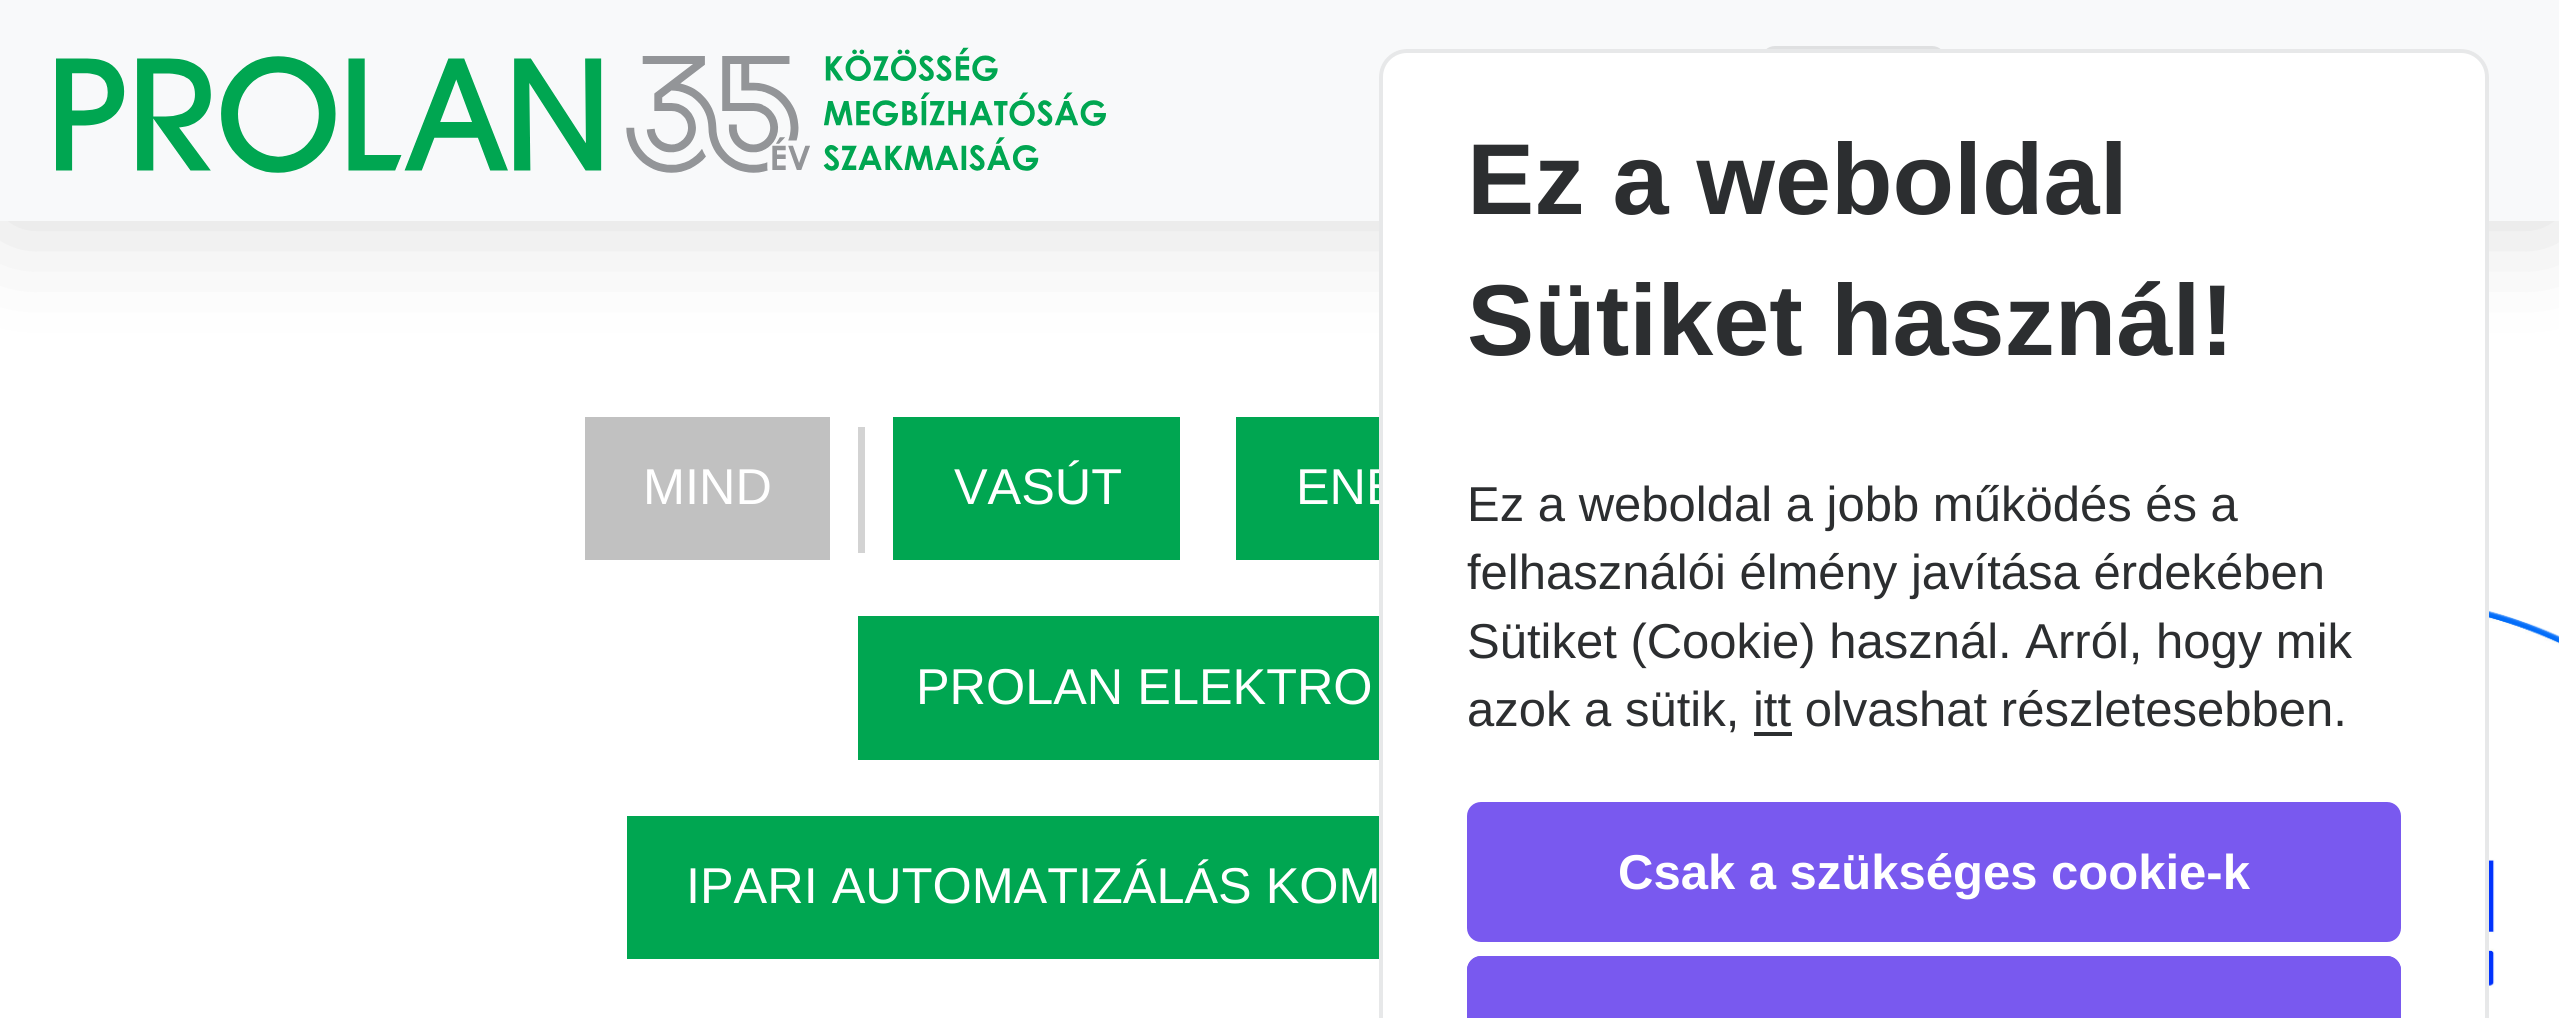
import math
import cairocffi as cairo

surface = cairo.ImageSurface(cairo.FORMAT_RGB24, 2559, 1018)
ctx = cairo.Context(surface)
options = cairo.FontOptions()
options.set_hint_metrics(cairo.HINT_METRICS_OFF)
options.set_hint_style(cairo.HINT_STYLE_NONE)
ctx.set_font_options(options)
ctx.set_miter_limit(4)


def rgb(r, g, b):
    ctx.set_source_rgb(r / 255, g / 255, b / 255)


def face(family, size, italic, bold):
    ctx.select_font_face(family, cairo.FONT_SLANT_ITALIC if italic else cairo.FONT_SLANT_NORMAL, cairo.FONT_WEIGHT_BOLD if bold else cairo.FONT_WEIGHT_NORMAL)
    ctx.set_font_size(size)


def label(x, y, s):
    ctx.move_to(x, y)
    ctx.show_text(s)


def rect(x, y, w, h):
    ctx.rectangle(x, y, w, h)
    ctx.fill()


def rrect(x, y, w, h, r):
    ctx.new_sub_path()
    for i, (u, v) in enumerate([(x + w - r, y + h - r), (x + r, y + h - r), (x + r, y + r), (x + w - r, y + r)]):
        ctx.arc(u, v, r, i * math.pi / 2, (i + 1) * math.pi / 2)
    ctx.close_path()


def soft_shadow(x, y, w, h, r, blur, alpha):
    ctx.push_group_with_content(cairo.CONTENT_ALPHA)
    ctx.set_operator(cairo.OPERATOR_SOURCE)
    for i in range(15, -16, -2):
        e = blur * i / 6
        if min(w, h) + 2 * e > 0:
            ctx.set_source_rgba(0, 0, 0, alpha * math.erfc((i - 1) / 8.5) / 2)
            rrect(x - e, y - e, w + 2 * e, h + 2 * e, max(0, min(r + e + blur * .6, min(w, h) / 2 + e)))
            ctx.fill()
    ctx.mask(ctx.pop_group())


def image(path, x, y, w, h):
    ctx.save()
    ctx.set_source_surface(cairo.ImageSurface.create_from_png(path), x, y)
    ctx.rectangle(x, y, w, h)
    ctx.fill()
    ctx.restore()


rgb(255, 255, 255)
ctx.paint()
rgb(0, 0, 0)
soft_shadow(0, 0, 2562, 221, 0, 61, 0.15)
rgb(248, 249, 250)
rect(0, 0, 2559, 221)
image('image0.png', 56, 47, 1050, 126)
rrect(1763, 48, 181, 125, 12)
rgb(223, 224, 225)
ctx.set_line_width(4)
ctx.stroke()
rgb(193, 193, 193)
rect(585, 417, 245, 143)
face('Liberation Sans', 50.4, 0, 0)
rgb(255, 255, 255)
label(643, 504, 'MIND')
rgb(211, 211, 211)
rect(858, 427, 7, 126)
rgb(0, 166, 81)
rect(893, 417, 287, 143)
rgb(255, 255, 255)
label(954, 504, 'VASÚT')
rgb(0, 166, 81)
rect(1236, 417, 143, 143)
rgb(255, 255, 255)
label(1296, 504, 'ENE')
rgb(0, 166, 81)
rect(858, 616, 521, 144)
rgb(255, 255, 255)
label(916, 704, 'PROLAN ELEKTRO')
rgb(0, 166, 81)
rect(627, 816, 752, 143)
rgb(255, 255, 255)
label(686, 903, 'IPARI AUTOMATIZÁLÁS KOM')
ctx.new_path()
ctx.move_to(1407, 49)
ctx.line_to(2461, 49)
ctx.curve_to(2476.5, 49, 2489, 61.5, 2489, 77)
ctx.line_to(2489, 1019)
ctx.line_to(1379, 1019)
ctx.line_to(1379, 77)
ctx.curve_to(1379, 61.5, 1391.5, 49, 1407, 49)
ctx.close_path()
ctx.fill()
rrect(1381, 51, 1106, 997, 26)
rgb(231, 232, 233)
ctx.stroke()
face('Liberation Sans', 100.75, 0, 1)
rgb(44, 46, 48)
label(1467, 214, 'Ez a weboldal')
label(1467, 355, 'Sütiket használ!')
face('Liberation Sans', 49, 0, 0)
label(1467, 521, 'Ez a weboldal a jobb működés és a')
label(1467, 589, 'felhasználói élmény javítása érdekében')
label(1467, 658, 'Sütiket (Cookie) használ. Arról, hogy mik')
label(1467, 726, 'azok a sütik, itt olvashat részletesebben.')
rect(1754, 732, 38, 4)
rgb(121, 89, 239)
rrect(1469, 804, 930, 136, 12)
ctx.fill_preserve()
ctx.stroke()
face('Liberation Sans', 49, 0, 1)
rgb(255, 255, 255)
label(1618, 889, 'Csak a szükséges cookie-k')
rgb(121, 89, 239)
ctx.new_path()
ctx.move_to(1481, 956)
ctx.line_to(2387, 956)
ctx.curve_to(2394.5, 956, 2401, 962.5, 2401, 970)
ctx.line_to(2401, 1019)
ctx.line_to(1467, 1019)
ctx.line_to(1467, 970)
ctx.curve_to(1467, 962.5, 1473.5, 956, 1481, 956)
ctx.close_path()
ctx.fill()
rrect(1469, 958, 930, 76, 12)
ctx.stroke()
image('image1.png', 2489, 608, 70, 410)
surface.write_to_png('render.png')
